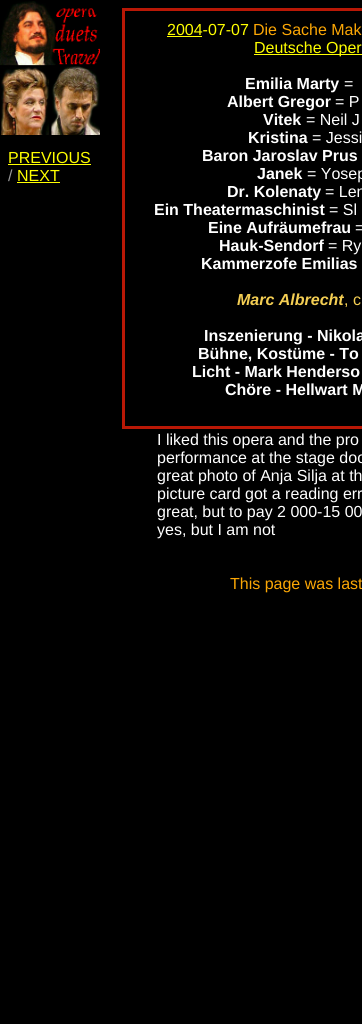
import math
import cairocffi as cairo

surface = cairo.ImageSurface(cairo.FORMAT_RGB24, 362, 1024)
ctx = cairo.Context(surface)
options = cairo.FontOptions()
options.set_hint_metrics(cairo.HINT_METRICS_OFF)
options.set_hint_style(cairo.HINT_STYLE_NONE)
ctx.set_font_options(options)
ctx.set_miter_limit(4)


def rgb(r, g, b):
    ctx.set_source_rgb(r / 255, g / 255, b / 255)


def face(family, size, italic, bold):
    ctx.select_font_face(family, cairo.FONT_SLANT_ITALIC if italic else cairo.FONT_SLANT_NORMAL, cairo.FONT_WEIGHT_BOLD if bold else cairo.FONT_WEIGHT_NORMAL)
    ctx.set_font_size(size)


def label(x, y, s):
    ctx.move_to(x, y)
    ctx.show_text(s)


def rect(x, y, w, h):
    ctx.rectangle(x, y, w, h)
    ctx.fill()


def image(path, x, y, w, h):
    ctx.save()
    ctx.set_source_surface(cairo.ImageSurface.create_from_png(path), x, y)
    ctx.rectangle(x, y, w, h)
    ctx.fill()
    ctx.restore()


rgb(0, 0, 0)
ctx.paint()
image('image0.png', 0, 1, 100, 134)
ctx.rectangle(123.5, 9.5, 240, 418)
rgb(185, 24, 6)
ctx.set_line_width(3)
ctx.stroke()
face('Liberation Sans', 16, 0, 0)
rgb(255, 255, 0)
label(167, 35, '2004-07-07')
rect(167, 36, 35, 1)
rgb(252, 167, 5)
label(253, 35, 'Die Sache Mak')
rgb(255, 255, 0)
rect(254, 54, 108, 1)
label(254, 53, 'Deutsche Oper')
face('Liberation Sans', 16, 0, 1)
rgb(255, 255, 255)
label(245, 89, 'Emilia Marty')
face('Liberation Sans', 16, 0, 0)
label(344, 89, '=')
face('Liberation Sans', 16, 0, 1)
label(227, 107, 'Albert Gregor')
face('Liberation Sans', 16, 0, 0)
label(335, 107, '= P')
face('Liberation Sans', 16, 0, 1)
label(263, 125, 'Vitek')
face('Liberation Sans', 16, 0, 0)
label(306, 125, '= Neil J')
face('Liberation Sans', 16, 0, 1)
label(248, 143, 'Kristina')
face('Liberation Sans', 16, 0, 0)
label(312, 143, '= Jessi')
face('Liberation Sans', 16, 0, 1)
label(202, 161, 'Baron Jaroslav Prus')
label(257, 179, 'Janek')
face('Liberation Sans', 16, 0, 0)
label(307, 179, '= Yosep')
face('Liberation Sans', 16, 0, 1)
label(227, 197, 'Dr. Kolenaty')
face('Liberation Sans', 16, 0, 0)
label(325, 197, '= Len')
face('Liberation Sans', 16, 0, 1)
label(154, 215, 'Ein Theatermaschinist')
face('Liberation Sans', 16, 0, 0)
label(329, 215, '= Sl')
face('Liberation Sans', 16, 0, 1)
label(208, 233, 'Eine Aufräumefrau')
face('Liberation Sans', 16, 0, 0)
label(355, 233, '=')
face('Liberation Sans', 16, 0, 1)
label(219, 251, 'Hauk-Sendorf')
face('Liberation Sans', 16, 0, 0)
label(328, 251, '= Ry')
face('Liberation Sans', 16, 0, 1)
label(201, 269, 'Kammerzofe Emilias')
face('Liberation Sans', 16, 1, 1)
rgb(244, 206, 83)
label(237, 305, 'Marc Albrecht')
face('Liberation Sans', 16, 0, 0)
label(344, 305, ', c')
face('Liberation Sans', 16, 0, 1)
rgb(255, 255, 255)
label(204, 341, 'Inszenierung - Nikola')
label(198, 359, 'Bühne, Kostüme - To')
label(192, 377, 'Licht - Mark Henderso')
label(225, 395, 'Chöre - Hellwart M')
face('Liberation Sans', 16, 0, 0)
rgb(255, 255, 0)
label(8, 163, 'PREVIOUS')
rect(8, 164, 83, 1)
rgb(153, 153, 153)
label(8, 181, '/')
rgb(255, 255, 0)
label(17, 181, 'NEXT')
rect(17, 182, 43, 1)
rgb(255, 255, 255)
label(157, 445, 'I liked this opera and the pro')
label(157, 463, 'performance at the stage doo')
label(157, 481, 'great photo of Anja Silja at th')
label(157, 499, 'picture card got a reading err')
label(157, 517, 'great, but to pay 2 000-15 00')
label(157, 535, 'yes, but I am not')
rgb(252, 167, 5)
label(230, 589, 'This page was last')
surface.write_to_png('render.png')
